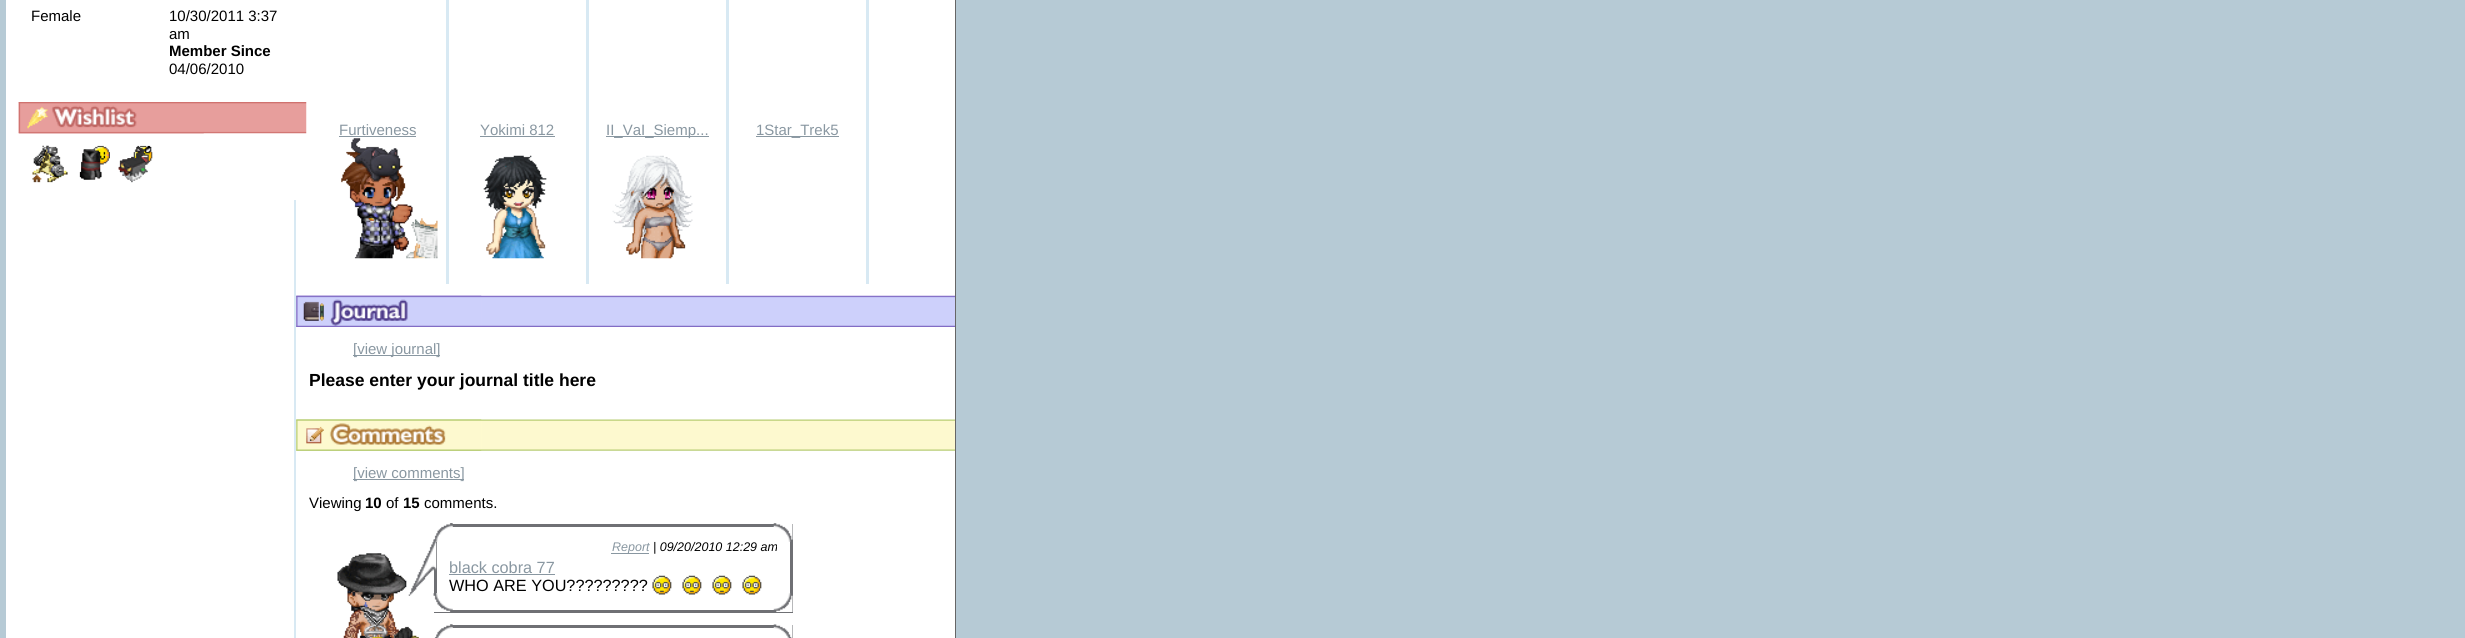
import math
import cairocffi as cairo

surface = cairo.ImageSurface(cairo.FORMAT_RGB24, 2465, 638)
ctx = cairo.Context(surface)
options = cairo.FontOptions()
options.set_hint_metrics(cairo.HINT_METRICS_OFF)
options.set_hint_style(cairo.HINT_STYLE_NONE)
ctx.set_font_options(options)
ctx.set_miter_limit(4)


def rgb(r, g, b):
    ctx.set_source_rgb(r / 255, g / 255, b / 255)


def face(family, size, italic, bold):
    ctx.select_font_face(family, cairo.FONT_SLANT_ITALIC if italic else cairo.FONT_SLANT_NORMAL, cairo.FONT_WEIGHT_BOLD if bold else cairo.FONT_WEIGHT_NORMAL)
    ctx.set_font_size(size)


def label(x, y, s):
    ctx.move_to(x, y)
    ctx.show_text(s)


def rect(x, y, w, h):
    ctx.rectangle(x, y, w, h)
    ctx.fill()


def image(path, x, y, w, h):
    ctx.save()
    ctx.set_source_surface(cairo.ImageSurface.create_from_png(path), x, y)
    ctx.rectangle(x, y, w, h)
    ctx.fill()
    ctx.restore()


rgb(182, 202, 213)
ctx.paint()
rgb(255, 255, 255)
rect(6, 0, 288, 638)
rgb(102, 102, 102)
rect(955, 0, 1, 638)
rgb(255, 255, 255)
rect(294, 0, 2, 102)
face('Liberation Sans', 15, 0, 0)
rgb(0, 0, 0)
label(31, 21, 'Female')
label(169, 21, '10/30/2011 3:37')
label(169, 39, 'am')
face('Liberation Sans', 15, 0, 1)
label(169, 56, 'Member Since')
face('Liberation Sans', 15, 0, 0)
label(169, 74, '04/06/2010')
rgb(255, 255, 255)
rect(294, 133, 2, 67)
rect(296, 0, 659, 638)
image('image0.png', 18, 102, 289, 32)
image('image1.png', 18, 102, 186, 32)
image('image2.png', 32, 145, 36, 38)
image('image3.png', 79, 145, 31, 35)
image('image4.png', 118, 145, 35, 38)
image('image5.png', 79, 149, 23, 31)
image('image6.png', 118, 146, 30, 37)
rgb(216, 233, 243)
rect(294, 200, 2, 438)
rgb(137, 151, 161)
label(339, 135, 'Furtiveness')
rect(339, 136, 77, 1)
image('image7.png', 341, 138, 97, 121)
rgb(216, 233, 243)
rect(446, 0, 3, 284)
rgb(137, 151, 161)
label(480, 135, 'Yokimi 812')
rect(480, 136, 75, 1)
image('image8.png', 483, 155, 64, 104)
rgb(216, 233, 243)
rect(586, 0, 3, 284)
rgb(137, 151, 161)
rect(606, 136, 103, 1)
label(606, 135, 'II_VaI_Siemp...')
image('image9.png', 612, 155, 81, 104)
rgb(216, 233, 243)
rect(726, 0, 3, 284)
rgb(137, 151, 161)
rect(756, 136, 83, 1)
label(756, 135, '1Star_Trek5')
rgb(216, 233, 243)
rect(866, 0, 3, 284)
image('image10.png', 296, 295, 659, 32)
image('image11.png', 296, 295, 186, 32)
rgb(137, 151, 161)
rect(353, 355, 87, 1)
label(353, 354, '[view journal]')
face('Liberation Sans', 17.5, 0, 1)
rgb(0, 0, 0)
label(309, 386, 'Please enter your journal title here')
image('image12.png', 296, 419, 659, 32)
image('image13.png', 296, 419, 186, 32)
rgb(137, 151, 161)
rect(353, 479, 111, 1)
face('Liberation Sans', 15, 0, 0)
label(353, 478, '[view comments]')
rgb(0, 0, 0)
label(309, 508, 'Viewing')
face('Liberation Sans', 15, 0, 1)
label(365, 508, '10')
face('Liberation Sans', 15, 0, 0)
label(386, 508, 'of')
face('Liberation Sans', 15, 0, 1)
label(403, 508, '15')
face('Liberation Sans', 15, 0, 0)
label(424, 508, 'comments.')
image('image14.png', 337, 553, 82, 85)
ctx.rectangle(435.5, 525.5, 356, 86)
rgb(111, 112, 116)
ctx.set_line_width(3)
ctx.stroke()
image('image15.png', 433, 523, 360, 19)
image('image16.png', 433, 523, 20, 19)
image('image19.png', 433, 593, 360, 19)
image('image20.png', 433, 593, 20, 17)
image('image17.png', 408, 539, 29, 57)
rgb(137, 151, 161)
rect(611, 553, 38, 1)
face('Liberation Sans', 12.5, 1, 0)
label(612, 551, 'Report')
rgb(0, 0, 0)
label(653, 551, '| 09/20/2010 12:29 am')
face('Liberation Sans', 16.25, 0, 0)
rgb(137, 151, 161)
label(449, 573, 'black cobra 77')
rect(449, 574, 106, 1)
rgb(0, 0, 0)
label(449, 591, 'WHO ARE YOU?????????')
image('image18.png', 652, 575, 20, 20)
image('image18.png', 682, 575, 20, 20)
image('image18.png', 712, 575, 20, 20)
image('image18.png', 742, 575, 20, 20)
ctx.rectangle(435.5, 626.5, 356, 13)
rgb(111, 112, 116)
ctx.stroke()
image('image21.png', 434, 624, 359, 14)
image('image22.png', 450, 624, 3, 4)
surface.write_to_png('render.png')
